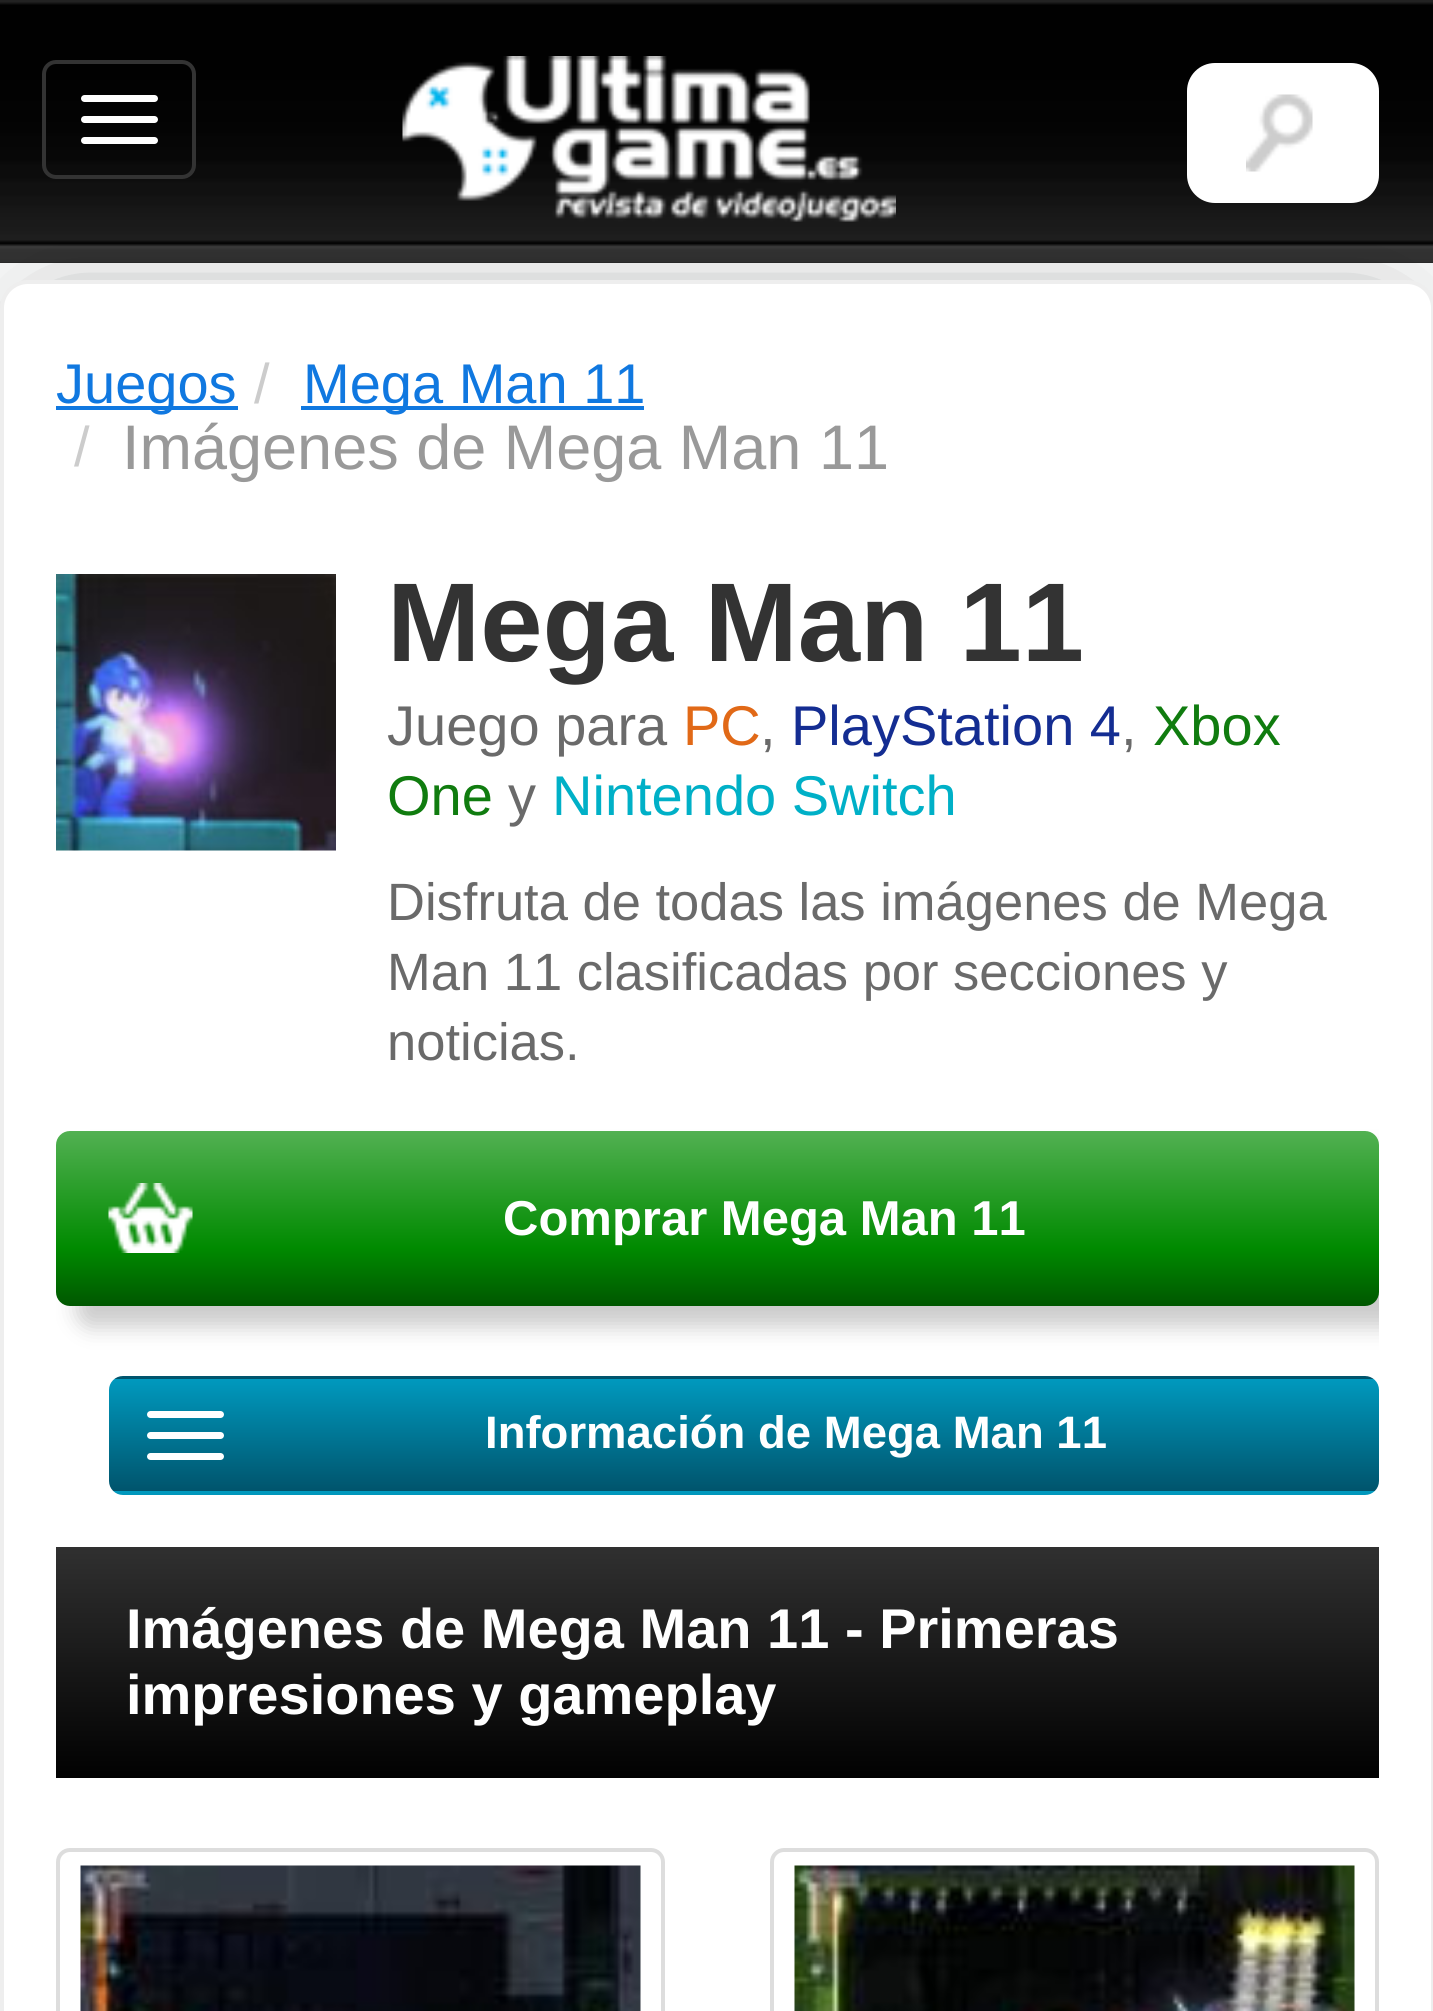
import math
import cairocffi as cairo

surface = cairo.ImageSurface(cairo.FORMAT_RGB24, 1433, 2011)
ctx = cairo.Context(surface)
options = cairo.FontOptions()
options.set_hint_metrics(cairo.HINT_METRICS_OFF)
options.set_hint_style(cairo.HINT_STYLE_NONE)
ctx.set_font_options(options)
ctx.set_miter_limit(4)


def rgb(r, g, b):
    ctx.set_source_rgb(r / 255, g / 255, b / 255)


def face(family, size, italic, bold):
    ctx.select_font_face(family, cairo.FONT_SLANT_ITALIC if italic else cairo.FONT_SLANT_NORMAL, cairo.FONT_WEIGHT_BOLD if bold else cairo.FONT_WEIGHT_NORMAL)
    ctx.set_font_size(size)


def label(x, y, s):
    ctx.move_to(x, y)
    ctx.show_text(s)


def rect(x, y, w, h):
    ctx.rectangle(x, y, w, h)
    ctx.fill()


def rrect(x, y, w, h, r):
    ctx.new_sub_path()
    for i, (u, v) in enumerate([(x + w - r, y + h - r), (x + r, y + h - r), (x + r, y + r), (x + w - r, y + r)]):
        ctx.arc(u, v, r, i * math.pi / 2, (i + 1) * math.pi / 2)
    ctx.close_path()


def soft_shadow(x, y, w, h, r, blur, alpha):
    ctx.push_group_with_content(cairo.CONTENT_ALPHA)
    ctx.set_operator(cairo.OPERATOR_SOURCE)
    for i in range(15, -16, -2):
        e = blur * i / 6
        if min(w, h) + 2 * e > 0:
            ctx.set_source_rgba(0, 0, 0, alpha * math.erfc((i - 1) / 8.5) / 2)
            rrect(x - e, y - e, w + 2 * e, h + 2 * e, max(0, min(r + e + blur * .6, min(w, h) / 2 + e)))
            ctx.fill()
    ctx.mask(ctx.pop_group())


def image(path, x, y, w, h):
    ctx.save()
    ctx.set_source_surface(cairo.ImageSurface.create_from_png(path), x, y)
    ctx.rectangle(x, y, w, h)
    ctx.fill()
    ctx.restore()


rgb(244, 245, 245)
ctx.paint()
rgb(34, 34, 34)
rect(0, 0, 1433, 263)
image('image0.png', 0, 2, 1433, 261)
rrect(44, 62, 150, 115, 12)
rgb(51, 51, 51)
ctx.set_line_width(4)
ctx.stroke()
rgb(255, 255, 255)
rrect(81, 95, 77, 7, 3.5)
ctx.fill()
rrect(81, 116, 77, 7, 3.5)
ctx.fill()
rrect(81, 137, 77, 7, 3.5)
ctx.fill()
rgb(0, 0, 0)
soft_shadow(63, 343, 1309, 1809, 0, 47, 1)
image('image1.png', 402, 56, 494, 166)
rgb(255, 255, 255)
rrect(1187, 63, 192, 140, 28)
ctx.fill()
image('image2.png', 1246, 94, 67, 78)
rrect(2, 282, 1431, 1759, 26)
ctx.fill_preserve()
rgb(238, 238, 238)
ctx.stroke()
rgb(16, 120, 224)
rect(56, 406, 182, 4)
face('Liberation Sans', 56, 0, 0)
label(56, 403, 'Juegos')
rgb(204, 204, 204)
label(254, 403, '/')
rgb(16, 120, 224)
rect(301, 406, 343, 4)
label(303, 403, 'Mega Man 11')
rgb(204, 204, 204)
label(74, 466, '/')
face('Liberation Sans', 63, 0, 0)
rgb(153, 153, 153)
label(122, 469, 'Imágenes de Mega Man 11')
image('image3.png', 56, 574, 280, 277)
face('Liberation Sans', 112, 0, 1)
rgb(51, 51, 51)
label(387, 661, 'Mega Man 11')
face('Liberation Sans', 56, 0, 0)
rgb(106, 106, 106)
label(387, 745, 'Juego para')
rgb(225, 105, 23)
label(683, 745, 'PC')
rgb(106, 106, 106)
label(760, 745, ',')
rgb(20, 45, 146)
label(791, 745, 'PlayStation 4')
rgb(106, 106, 106)
label(1121, 745, ',')
rgb(16, 124, 15)
label(1153, 745, 'Xbox')
label(387, 815, 'One')
rgb(106, 106, 106)
label(508, 815, 'y')
rgb(0, 176, 199)
label(552, 815, 'Nintendo Switch')
face('Liberation Sans', 52.5, 0, 0)
rgb(106, 106, 106)
label(387, 920, 'Disfruta de todas las imágenes de Mega')
label(387, 990, 'Man 11 clasificadas por secciones y')
label(387, 1060, 'noticias.')
ctx.save()
ctx.rectangle(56, 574, 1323, 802)
ctx.clip()
rgb(204, 204, 204)
soft_shadow(77, 1152, 1323, 175, 14, 10.5, 1)
ctx.restore()
gradient = cairo.LinearGradient(718, 1131, 718, 1306)
gradient.add_color_stop_rgba(0, 0.322, 0.694, 0.322, 1)
gradient.add_color_stop_rgba(0.67, 0, 0.541, 0, 1)
gradient.add_color_stop_rgba(1, 0, 0.341, 0, 1)
ctx.set_source(gradient)
rrect(56, 1131, 1323, 175, 14)
ctx.fill()
image('image4.png', 108, 1183, 85, 70)
face('Liberation Sans', 49, 0, 1)
rgb(255, 255, 255)
label(503, 1235, 'Comprar Mega Man 11')
ctx.save()
rrect(109, 1376, 1270, 119, 14)
ctx.clip()
gradient = cairo.LinearGradient(744, 1267, 744, 1379)
gradient.add_color_stop_rgba(0, 0, 0.6, 0.745, 1)
gradient.add_color_stop_rgba(1, 0, 0.329, 0.424, 1)
ctx.set_source(gradient)
rect(109, 1376, 1270, 3)
gradient = cairo.LinearGradient(744, 1379, 744, 1491)
gradient.add_color_stop_rgba(0, 0, 0.6, 0.745, 1)
gradient.add_color_stop_rgba(1, 0, 0.329, 0.424, 1)
ctx.set_source(gradient)
rect(109, 1379, 1270, 112)
gradient = cairo.LinearGradient(744, 1491, 744, 1603)
gradient.add_color_stop_rgba(0, 0, 0.6, 0.745, 1)
gradient.add_color_stop_rgba(1, 0, 0.329, 0.424, 1)
ctx.set_source(gradient)
rect(109, 1491, 1270, 4)
ctx.restore()
rrect(147, 1411, 77, 7, 3.5)
ctx.fill()
rrect(147, 1432, 77, 7, 3.5)
ctx.fill()
rrect(147, 1453, 77, 7, 3.5)
ctx.fill()
face('Liberation Sans', 45.5, 0, 1)
label(485, 1448, 'Información de Mega Man 11')
gradient = cairo.LinearGradient(718, 1547, 718, 1778)
gradient.add_color_stop_rgba(0, 0.188, 0.188, 0.188, 1)
gradient.add_color_stop_rgba(1, 0.004, 0.004, 0.004, 1)
ctx.set_source(gradient)
rect(56, 1547, 1323, 231)
face('Liberation Sans', 56, 0, 1)
rgb(255, 255, 255)
label(126, 1648, 'Imágenes de Mega Man 11 - Primeras')
label(126, 1714, 'impresiones y gameplay')
rrect(58, 1850, 605, 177, 12)
rgb(221, 221, 221)
ctx.stroke()
image('image5.png', 80, 1865, 561, 146)
rrect(772, 1850, 605, 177, 12)
ctx.stroke()
image('image6.png', 794, 1865, 561, 146)
surface.write_to_png('render.png')
